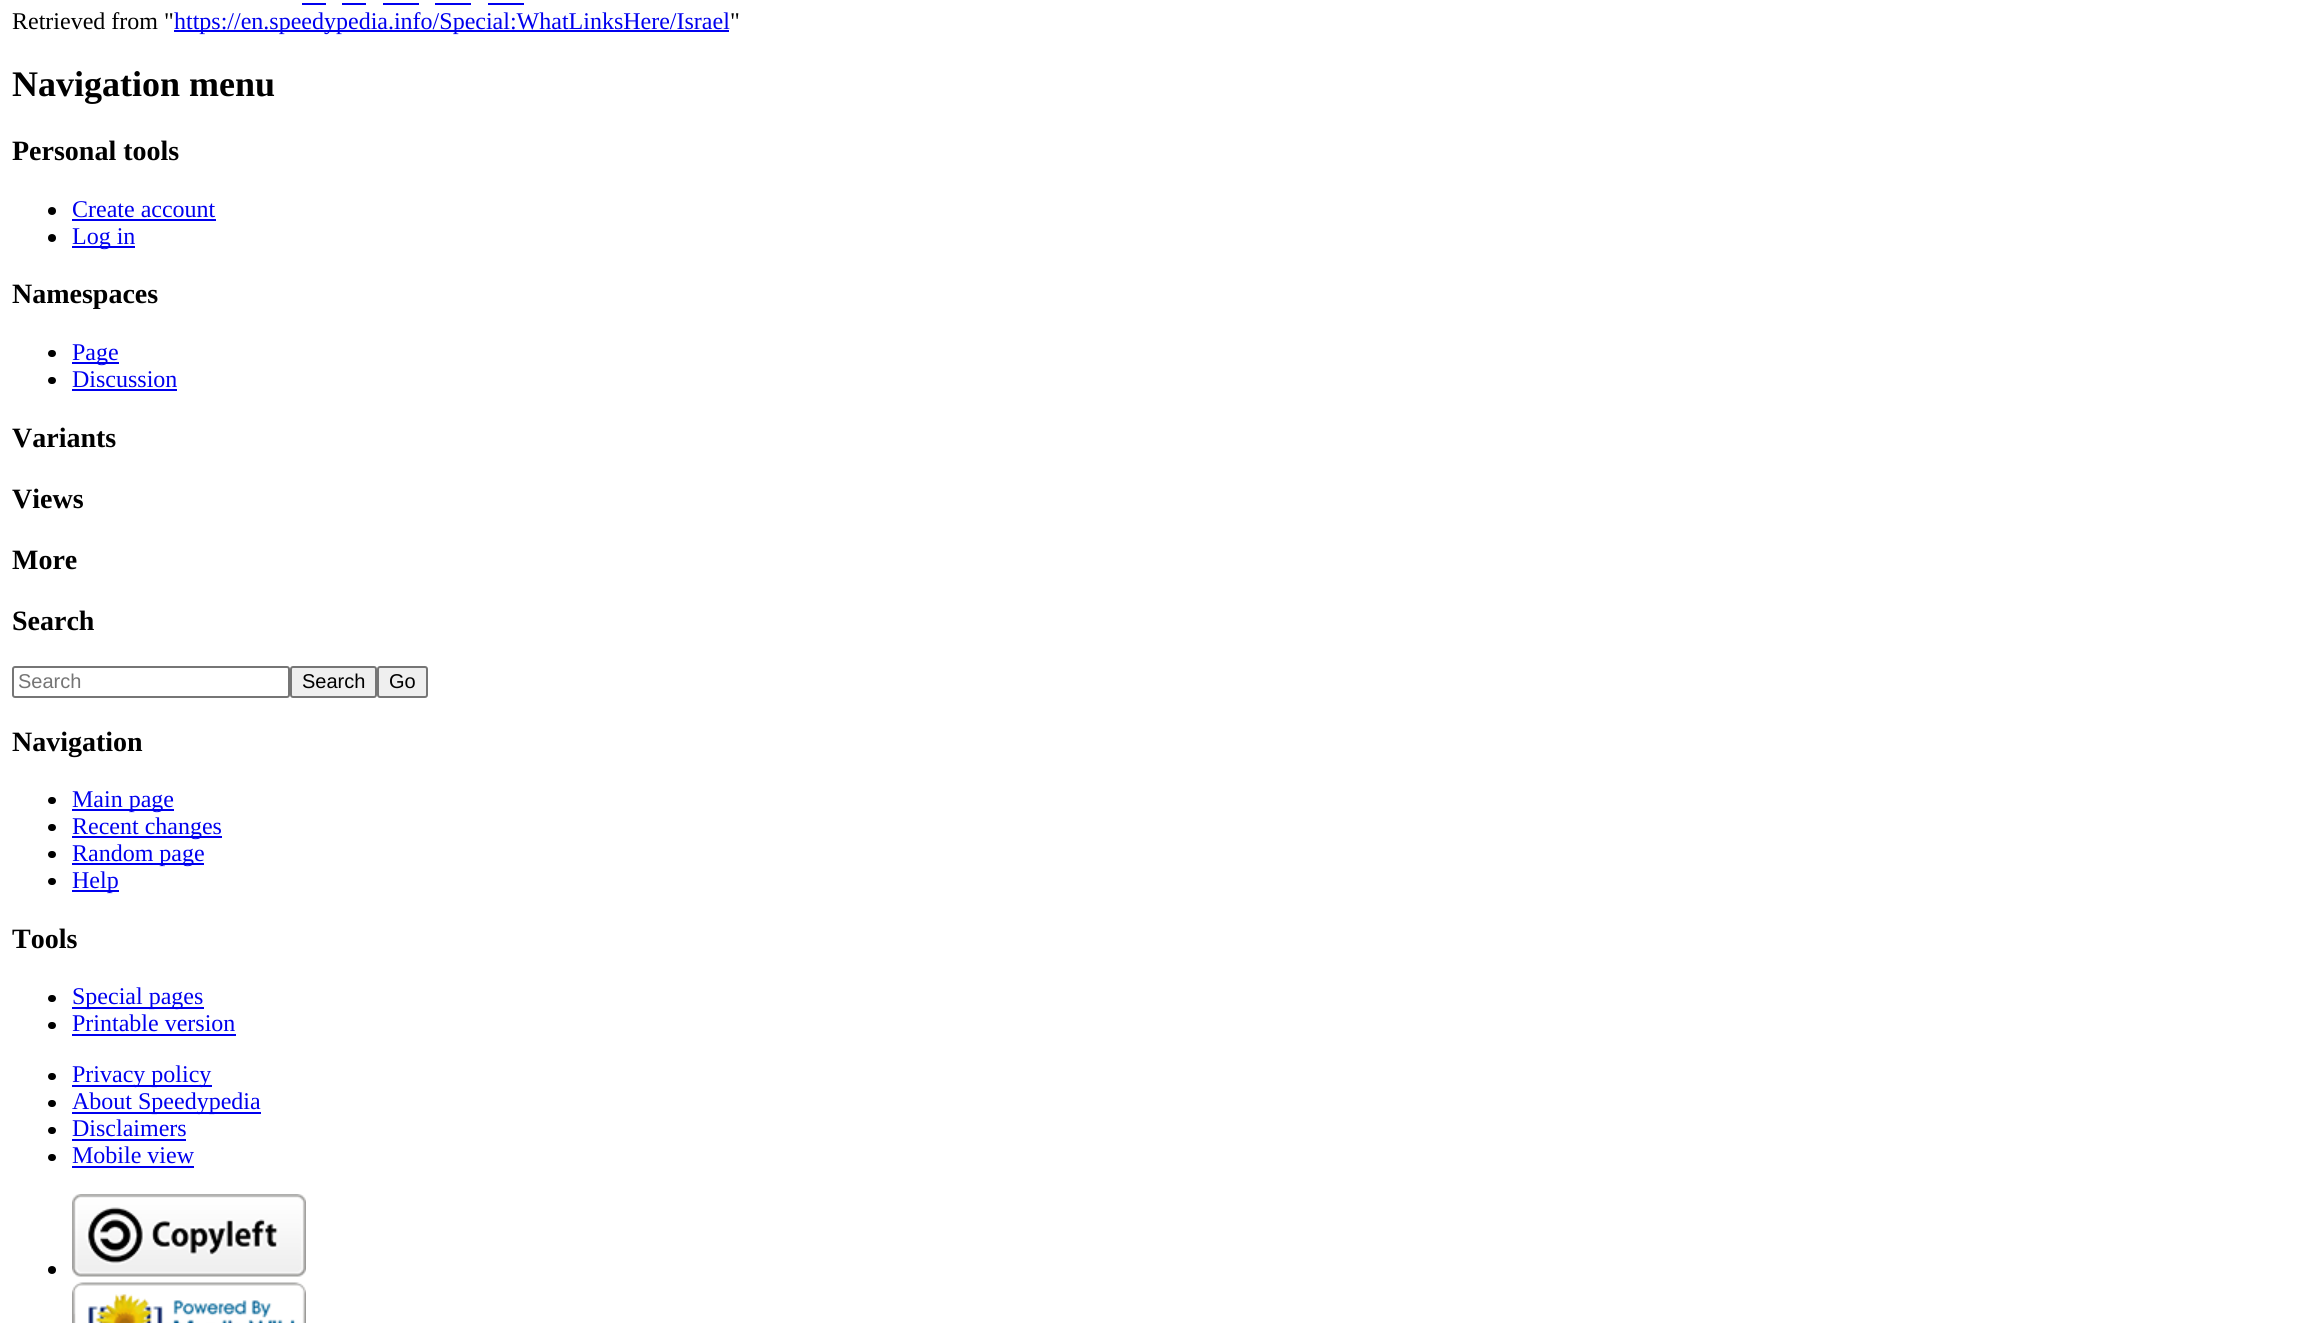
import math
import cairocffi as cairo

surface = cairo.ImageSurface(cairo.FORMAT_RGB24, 2309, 1323)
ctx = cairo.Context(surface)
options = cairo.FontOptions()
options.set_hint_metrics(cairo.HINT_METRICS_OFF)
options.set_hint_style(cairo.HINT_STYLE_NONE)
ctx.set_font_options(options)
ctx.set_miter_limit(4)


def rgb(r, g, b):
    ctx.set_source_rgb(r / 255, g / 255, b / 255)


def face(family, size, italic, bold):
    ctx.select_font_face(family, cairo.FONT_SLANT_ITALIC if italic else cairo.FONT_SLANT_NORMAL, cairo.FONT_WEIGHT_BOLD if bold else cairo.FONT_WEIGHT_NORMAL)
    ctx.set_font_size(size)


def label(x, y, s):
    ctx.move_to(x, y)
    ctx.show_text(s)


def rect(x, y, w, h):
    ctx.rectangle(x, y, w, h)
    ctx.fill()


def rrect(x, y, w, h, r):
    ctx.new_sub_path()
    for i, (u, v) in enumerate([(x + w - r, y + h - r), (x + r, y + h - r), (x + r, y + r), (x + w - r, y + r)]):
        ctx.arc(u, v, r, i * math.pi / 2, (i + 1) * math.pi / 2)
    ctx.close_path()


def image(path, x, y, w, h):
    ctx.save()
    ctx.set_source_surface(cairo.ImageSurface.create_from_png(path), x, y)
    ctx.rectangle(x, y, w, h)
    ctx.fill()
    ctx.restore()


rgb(255, 255, 255)
ctx.paint()
rgb(0, 0, 238)
rect(302, 3, 24, 2)
rect(342, 3, 24, 2)
rect(383, 3, 36, 2)
rect(435, 3, 36, 2)
rect(488, 3, 36, 2)
face('Liberation Serif', 24, 0, 0)
rgb(0, 0, 0)
label(12, 29, 'Retrieved from "')
rgb(0, 0, 238)
rect(174, 30, 555, 2)
label(174, 29, 'https://en.speedypedia.info/Special:WhatLinksHere/Israel')
rgb(0, 0, 0)
label(730, 29, '"')
face('Liberation Serif', 36, 0, 1)
label(12, 96, 'Navigation menu')
face('Liberation Serif', 28, 0, 1)
label(12, 160, 'Personal tools')
ctx.new_path()
ctx.arc(52, 211, 4, 0, 2 * math.pi)
ctx.fill()
face('Liberation Serif', 24, 0, 0)
rgb(0, 0, 238)
label(72, 217, 'Create account')
rect(72, 219, 144, 2)
rgb(0, 0, 0)
ctx.new_path()
ctx.arc(52, 238, 4, 0, 2 * math.pi)
ctx.fill()
rgb(0, 0, 238)
rect(72, 246, 63, 2)
label(72, 244, 'Log in')
face('Liberation Serif', 28, 0, 1)
rgb(0, 0, 0)
label(12, 303, 'Namespaces')
rrect(48, 350, 8, 7, 3.5)
ctx.fill()
rgb(0, 0, 238)
rect(72, 362, 47, 2)
face('Liberation Serif', 24, 0, 0)
label(72, 360, 'Page')
rgb(0, 0, 0)
rrect(48, 377, 8, 7, 3.5)
ctx.fill()
rgb(0, 0, 238)
label(72, 387, 'Discussion')
rect(72, 389, 105, 2)
face('Liberation Serif', 28, 0, 1)
rgb(0, 0, 0)
label(12, 447, 'Variants')
label(12, 508, 'Views')
label(12, 569, 'More')
label(12, 630, 'Search')
rrect(13, 667, 276, 30, 2)
rgb(118, 118, 118)
ctx.stroke()
face('Liberation Sans', 20, 0, 0)
rgb(117, 117, 117)
label(18, 688, 'Search')
rgb(239, 239, 239)
rrect(291, 667, 85, 30, 2)
ctx.fill_preserve()
rgb(118, 118, 118)
ctx.stroke()
rgb(0, 0, 0)
label(302, 688, 'Search')
rgb(239, 239, 239)
rrect(378, 667, 49, 30, 2)
ctx.fill_preserve()
rgb(118, 118, 118)
ctx.stroke()
rgb(0, 0, 0)
label(389, 688, 'Go')
face('Liberation Serif', 28, 0, 1)
label(12, 751, 'Navigation')
rrect(48, 797, 8, 7, 3.5)
ctx.fill()
rgb(0, 0, 238)
rect(72, 809, 102, 2)
face('Liberation Serif', 24, 0, 0)
label(72, 807, 'Main page')
rgb(0, 0, 0)
rrect(48, 824, 8, 7, 3.5)
ctx.fill()
rgb(0, 0, 238)
rect(72, 836, 150, 2)
label(72, 834, 'Recent changes')
rgb(0, 0, 0)
rrect(48, 851, 8, 7, 3.5)
ctx.fill()
rgb(0, 0, 238)
rect(72, 863, 132, 2)
label(72, 861, 'Random page')
rgb(0, 0, 0)
rrect(48, 878, 8, 7, 3.5)
ctx.fill()
rgb(0, 0, 238)
rect(72, 890, 47, 2)
label(72, 888, 'Help')
face('Liberation Serif', 28, 0, 1)
rgb(0, 0, 0)
label(12, 948, 'Tools')
rrect(48, 995, 8, 7, 3.5)
ctx.fill()
rgb(0, 0, 238)
rect(72, 1007, 132, 2)
face('Liberation Serif', 24, 0, 0)
label(72, 1004, 'Special pages')
rgb(0, 0, 0)
rrect(48, 1022, 8, 7, 3.5)
ctx.fill()
rgb(0, 0, 238)
label(72, 1031, 'Printable version')
rect(72, 1034, 164, 2)
rgb(0, 0, 0)
rrect(48, 1073, 8, 7, 3.5)
ctx.fill()
rgb(0, 0, 238)
rect(72, 1085, 140, 2)
label(72, 1082, 'Privacy policy')
rgb(0, 0, 0)
rrect(48, 1100, 8, 7, 3.5)
ctx.fill()
rgb(0, 0, 238)
rect(72, 1112, 189, 2)
label(72, 1109, 'About Speedypedia')
rgb(0, 0, 0)
rrect(48, 1127, 8, 7, 3.5)
ctx.fill()
rgb(0, 0, 238)
label(72, 1136, 'Disclaimers')
rect(72, 1139, 114, 2)
rgb(0, 0, 0)
rrect(48, 1154, 8, 7, 3.5)
ctx.fill()
rgb(0, 0, 238)
label(72, 1163, 'Mobile view')
rect(72, 1166, 122, 2)
rgb(0, 0, 0)
ctx.new_path()
ctx.arc(52, 1270, 4, 0, 2 * math.pi)
ctx.fill()
image('image0.png', 72, 1194, 234, 83)
image('image1.png', 72, 1282, 234, 41)
surface.write_to_png('render.png')
